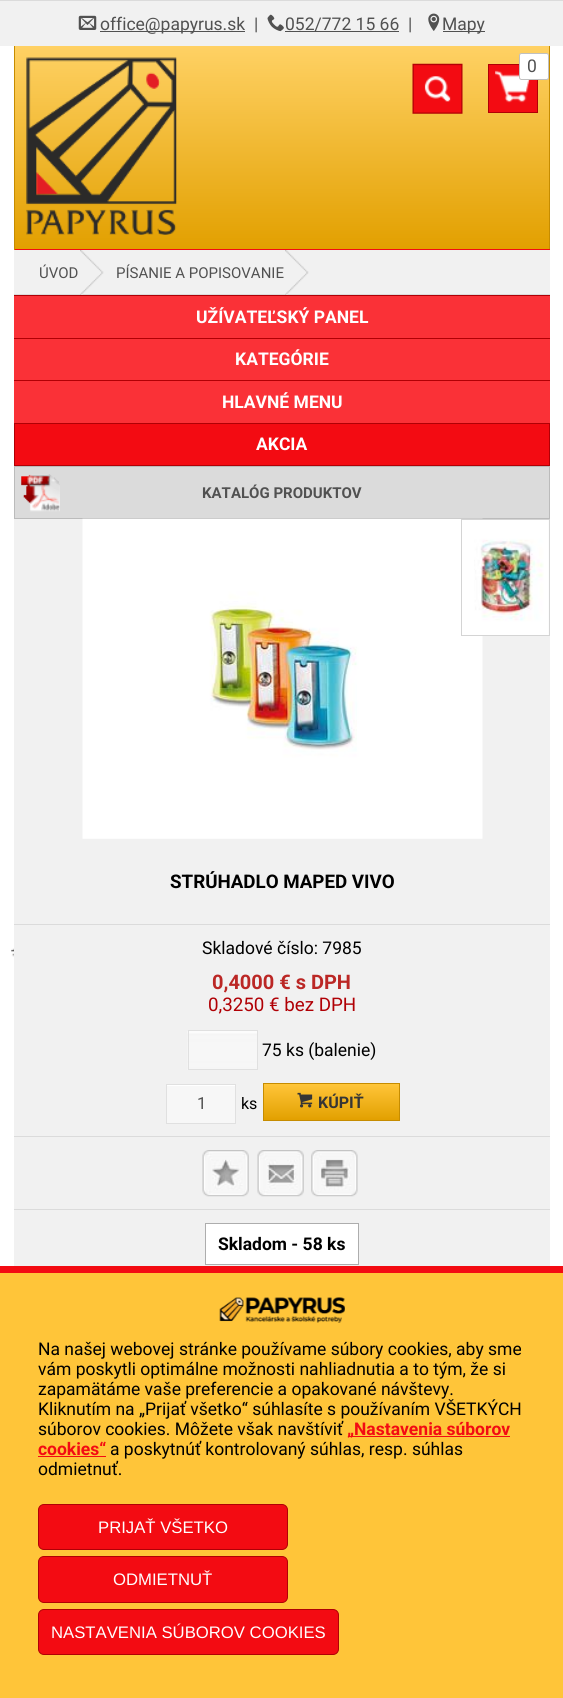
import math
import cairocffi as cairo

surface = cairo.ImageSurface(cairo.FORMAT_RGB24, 563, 1698)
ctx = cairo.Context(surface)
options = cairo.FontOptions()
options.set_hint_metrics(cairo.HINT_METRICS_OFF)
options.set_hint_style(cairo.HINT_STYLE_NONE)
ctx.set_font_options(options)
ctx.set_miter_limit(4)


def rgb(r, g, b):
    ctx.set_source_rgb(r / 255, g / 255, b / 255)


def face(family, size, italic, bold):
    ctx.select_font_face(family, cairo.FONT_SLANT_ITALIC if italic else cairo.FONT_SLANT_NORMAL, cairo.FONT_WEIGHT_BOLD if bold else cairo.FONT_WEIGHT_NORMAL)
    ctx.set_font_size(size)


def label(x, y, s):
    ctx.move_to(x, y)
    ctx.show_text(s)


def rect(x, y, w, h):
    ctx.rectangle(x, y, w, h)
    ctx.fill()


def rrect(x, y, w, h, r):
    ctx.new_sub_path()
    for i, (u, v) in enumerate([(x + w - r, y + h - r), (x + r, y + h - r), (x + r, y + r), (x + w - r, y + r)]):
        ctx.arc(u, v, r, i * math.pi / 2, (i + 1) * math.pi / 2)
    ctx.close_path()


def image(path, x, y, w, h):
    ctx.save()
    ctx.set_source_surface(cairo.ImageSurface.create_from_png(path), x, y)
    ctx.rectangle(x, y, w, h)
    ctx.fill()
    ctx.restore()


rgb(255, 255, 255)
ctx.paint()
image('image0.png', 11, 948, 3, 9)
rgb(241, 241, 241)
rect(0, 1, 563, 45)
rgb(219, 219, 219)
rect(0, 0, 563, 1)
image('image1.png', 78, 15, 19, 15)
rgb(81, 81, 81)
rect(100, 31, 145, 1)
face('Roboto', 17.5, 0, 0)
label(100, 30, 'office@papyrus.sk')
label(254, 30, '|')
image('image2.png', 267, 14, 17, 18)
rect(285, 31, 114, 1)
label(285, 30, '052/772 15 66')
label(408, 30, '|')
image('image3.png', 428, 13, 12, 18)
rect(443, 31, 42, 1)
label(442, 30, 'Mapy')
gradient = cairo.LinearGradient(282, 46, 282, 249)
gradient.add_color_stop_rgba(0, 1, 0.82, 0.392, 1)
gradient.add_color_stop_rgba(1, 0.886, 0.627, 0, 1)
ctx.set_source(gradient)
rect(15, 46, 534, 203)
rgb(198, 140, 0)
rect(549, 46, 1, 204)
rgb(243, 11, 18)
rect(14, 249, 536, 1)
rgb(198, 140, 0)
rect(14, 46, 1, 204)
image('image4.png', 26, 57, 151, 178)
image('image5.png', 412, 63, 51, 51)
rgb(243, 11, 18)
ctx.rectangle(488.5, 64.5, 49, 48)
ctx.fill_preserve()
rgb(176, 0, 5)
ctx.set_line_width(1)
ctx.stroke()
image('image6.png', 495, 70, 35, 33)
rgb(255, 255, 255)
rrect(519.5, 53.5, 29, 26, 2)
ctx.fill_preserve()
rgb(192, 192, 192)
ctx.stroke()
rgb(81, 81, 81)
label(527, 72, '0')
rgb(241, 241, 241)
rect(14, 250, 536, 1016)
rgb(219, 219, 219)
rect(14, 294, 536, 1)
image('image7.png', 80, 250, 24, 45)
face('Roboto', 15, 0, 0)
rgb(81, 81, 81)
label(39, 278, 'ÚVOD')
image('image8.png', 285, 250, 24, 45)
label(116, 278, 'PÍSANIE A POPISOVANIE')
rgb(250, 49, 55)
rect(14, 296, 536, 42)
rgb(176, 0, 5)
rect(14, 295, 536, 1)
face('Roboto', 17.5, 0, 1)
rgb(255, 255, 255)
label(196, 323, 'UŽÍVATEĽSKÝ PANEL')
rgb(250, 49, 55)
rect(14, 339, 536, 41)
rgb(176, 0, 5)
rect(14, 338, 536, 1)
rgb(255, 255, 255)
label(235, 365, 'KATEGÓRIE')
rgb(250, 49, 55)
rect(14, 381, 536, 42)
rgb(176, 0, 5)
rect(14, 380, 536, 1)
rgb(255, 255, 255)
label(222, 408, 'HLAVNÉ MENU')
rgb(243, 11, 18)
ctx.rectangle(14.5, 423.5, 535, 42)
ctx.fill_preserve()
rgb(176, 0, 5)
ctx.stroke()
rgb(255, 255, 255)
label(256, 450, 'AKCIA')
rgb(219, 219, 219)
rect(15, 467, 534, 51)
image('image9.png', 21, 474, 39, 38)
ctx.rectangle(14.5, 466.5, 535, 52)
rgb(187, 187, 187)
ctx.stroke()
face('Roboto', 15, 0, 1)
rgb(81, 81, 81)
label(202, 498, 'KATALÓG PRODUKTOV')
image('image10.png', 82, 518, 401, 321)
ctx.rectangle(461.5, 519.5, 88, 116)
rgb(212, 212, 212)
ctx.stroke()
image('image11.png', 474, 520, 75, 115)
rgb(219, 219, 219)
rect(14, 924, 536, 1)
face('Roboto', 18.75, 0, 1)
rgb(0, 0, 0)
label(170, 888, 'STRÚHADLO MAPED VIVO')
face('Roboto', 17.5, 0, 0)
label(202, 954, 'Skladové číslo: 7985')
rgb(219, 219, 219)
rect(14, 1136, 536, 1)
face('Roboto', 20, 0, 1)
rgb(187, 39, 37)
label(212, 989, '0,4000 € s DPH')
face('Roboto', 18.75, 0, 0)
rgb(176, 0, 5)
label(208, 1011, '0,3250 € bez DPH')
image('image12.png', 187, 1031, 70, 39)
ctx.rectangle(188.5, 1030.5, 69, 39)
rgb(224, 224, 224)
ctx.stroke()
face('Roboto', 17.5, 0, 0)
rgb(0, 0, 0)
label(262, 1056, '75 ks (balenie)')
rgb(255, 255, 255)
rect(167, 1085, 68, 1)
rgb(247, 247, 247)
rect(167, 1086, 68, 37)
ctx.rectangle(166.5, 1084.5, 69, 39)
rgb(224, 224, 224)
ctx.stroke()
face('Roboto', 16.7, 0, 0)
rgb(81, 81, 81)
label(197, 1109, '1')
face('Roboto', 16, 0, 0)
rgb(0, 0, 0)
label(241, 1109, 'ks')
gradient = cairo.LinearGradient(331, 1084, 331, 1120)
gradient.add_color_stop_rgba(0, 1, 0.773, 0.224, 1)
gradient.add_color_stop_rgba(1, 0.886, 0.627, 0, 1)
ctx.set_source(gradient)
rect(264, 1084, 135, 36)
ctx.rectangle(263.5, 1083.5, 136, 37)
rgb(198, 140, 0)
ctx.stroke()
image('image13.png', 297, 1092, 16, 16)
face('Roboto', 16, 0, 1)
rgb(53, 53, 53)
label(318, 1108, 'KÚPIŤ')
rgb(219, 219, 219)
rect(14, 1209, 536, 1)
image('image14.png', 202, 1150, 47, 47)
image('image15.png', 257, 1150, 47, 47)
image('image16.png', 311, 1150, 47, 47)
rgb(255, 255, 255)
ctx.rectangle(205.5, 1223.5, 153, 41)
ctx.fill_preserve()
rgb(173, 173, 173)
ctx.stroke()
face('Roboto', 17.5, 0, 1)
rgb(0, 0, 0)
label(218, 1250, 'Skladom - 58 ks')
rgb(255, 197, 57)
rect(0, 1273, 563, 425)
rgb(243, 11, 18)
rect(0, 1266, 563, 7)
image('image17.png', 219, 1297, 126, 26)
face('Roboto', 17.5, 0, 0)
rgb(0, 0, 0)
label(38, 1355, 'Na našej webovej stránke používame súbory cookies, aby sme')
label(38, 1375, 'vám poskytli optimálne možnosti nahliadnutia a to tým, že si')
label(38, 1395, 'zapamätáme vaše preferencie a opakované návštevy.')
label(38, 1415, 'Kliknutím na „Prijať všetko“ súhlasíte s používaním VŠETKÝCH')
label(38, 1435, 'súborov cookies. Môžete však navštíviť')
rgb(243, 11, 18)
rect(348, 1436, 162, 1)
face('Roboto', 17.5, 0, 1)
label(347, 1435, '„Nastavenia súborov')
label(38, 1455, 'cookies“')
rect(38, 1456, 68, 1)
face('Roboto', 17.5, 0, 0)
rgb(0, 0, 0)
label(110, 1455, 'a poskytnúť kontrolovaný súhlas, resp. súhlas')
label(38, 1475, 'odmietnuť.')
rgb(243, 11, 18)
rrect(38.5, 1504.5, 249, 45, 5.5)
ctx.fill_preserve()
rgb(176, 0, 5)
ctx.stroke()
face('Liberation Sans', 16.7, 0, 0)
rgb(255, 255, 255)
label(98, 1533, 'PRIJAŤ VŠETKO')
rgb(243, 11, 18)
rrect(38.5, 1556.5, 249, 46, 5.5)
ctx.fill_preserve()
rgb(176, 0, 5)
ctx.stroke()
rgb(255, 255, 255)
label(113, 1585, 'ODMIETNUŤ')
rgb(243, 11, 18)
rrect(38.5, 1609.5, 300, 45, 5.5)
ctx.fill_preserve()
rgb(176, 0, 5)
ctx.stroke()
rgb(255, 255, 255)
label(51, 1638, 'NASTAVENIA SÚBOROV COOKIES')
surface.write_to_png('render.png')
